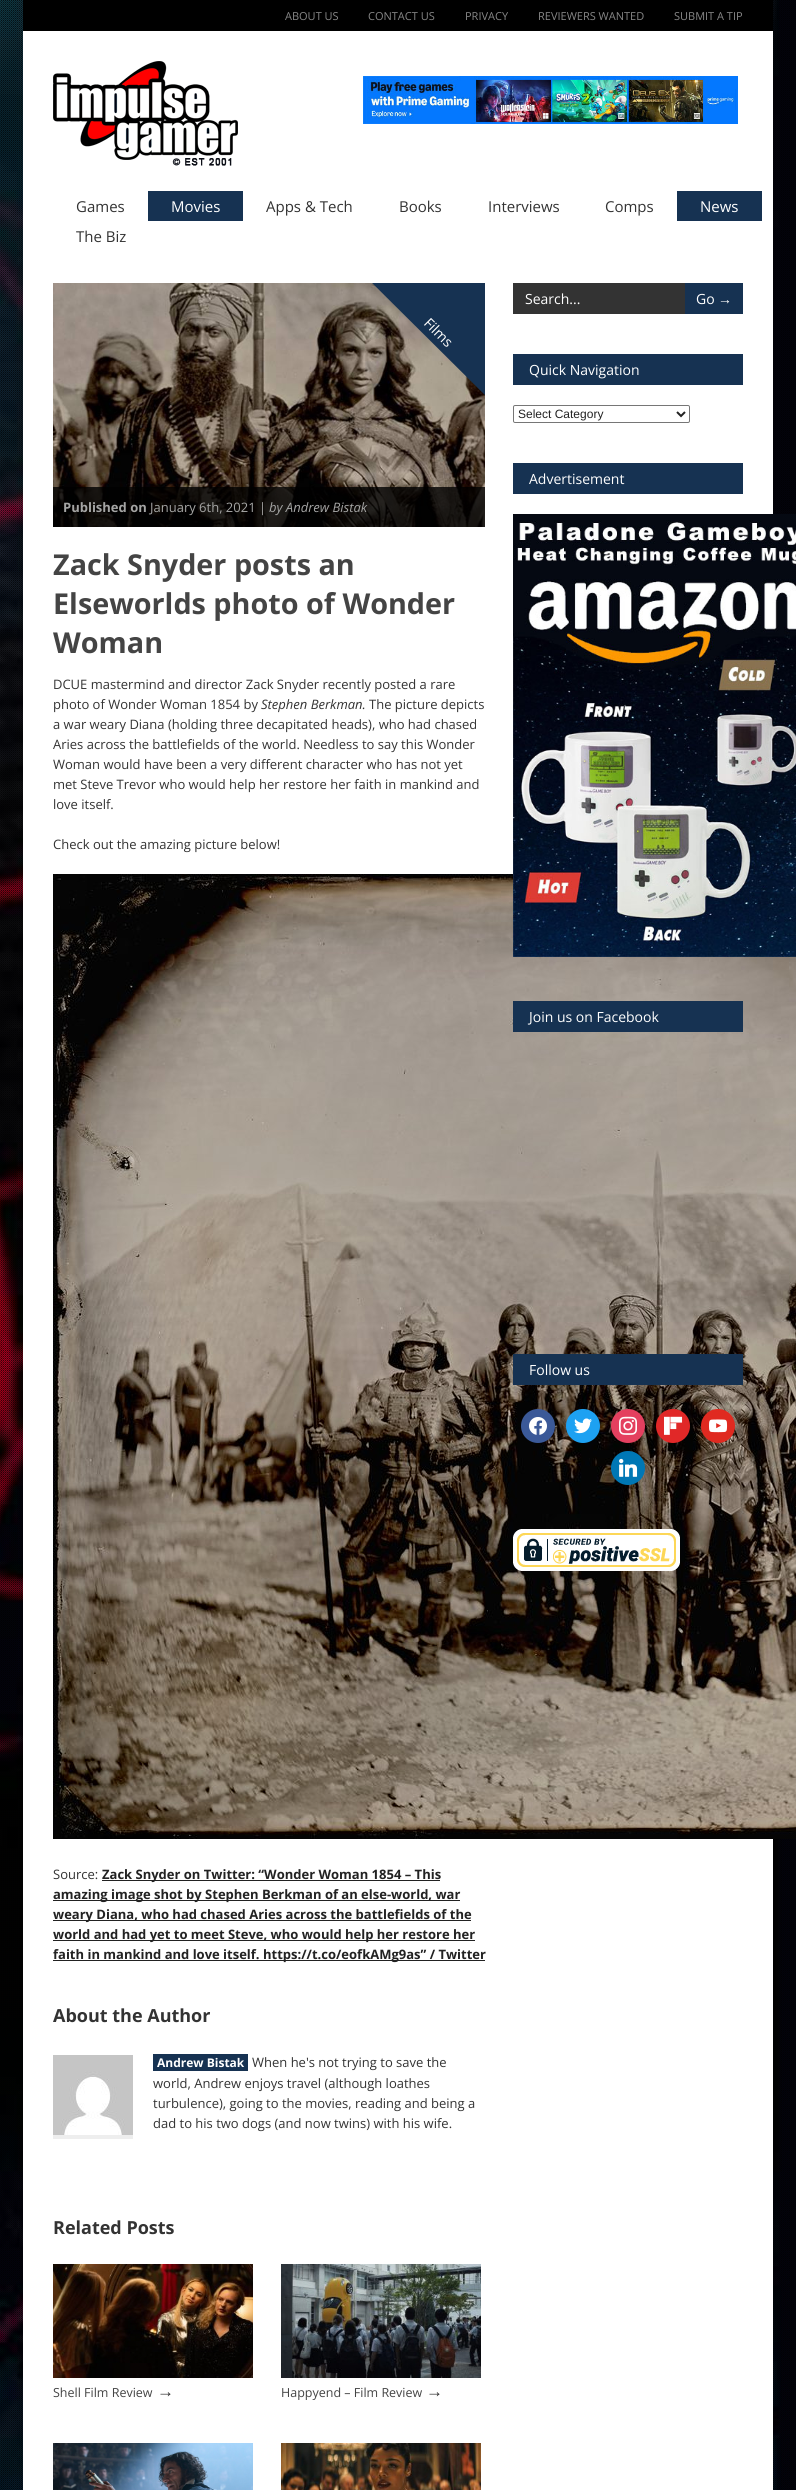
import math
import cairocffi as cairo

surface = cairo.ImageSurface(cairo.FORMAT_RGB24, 796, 2490)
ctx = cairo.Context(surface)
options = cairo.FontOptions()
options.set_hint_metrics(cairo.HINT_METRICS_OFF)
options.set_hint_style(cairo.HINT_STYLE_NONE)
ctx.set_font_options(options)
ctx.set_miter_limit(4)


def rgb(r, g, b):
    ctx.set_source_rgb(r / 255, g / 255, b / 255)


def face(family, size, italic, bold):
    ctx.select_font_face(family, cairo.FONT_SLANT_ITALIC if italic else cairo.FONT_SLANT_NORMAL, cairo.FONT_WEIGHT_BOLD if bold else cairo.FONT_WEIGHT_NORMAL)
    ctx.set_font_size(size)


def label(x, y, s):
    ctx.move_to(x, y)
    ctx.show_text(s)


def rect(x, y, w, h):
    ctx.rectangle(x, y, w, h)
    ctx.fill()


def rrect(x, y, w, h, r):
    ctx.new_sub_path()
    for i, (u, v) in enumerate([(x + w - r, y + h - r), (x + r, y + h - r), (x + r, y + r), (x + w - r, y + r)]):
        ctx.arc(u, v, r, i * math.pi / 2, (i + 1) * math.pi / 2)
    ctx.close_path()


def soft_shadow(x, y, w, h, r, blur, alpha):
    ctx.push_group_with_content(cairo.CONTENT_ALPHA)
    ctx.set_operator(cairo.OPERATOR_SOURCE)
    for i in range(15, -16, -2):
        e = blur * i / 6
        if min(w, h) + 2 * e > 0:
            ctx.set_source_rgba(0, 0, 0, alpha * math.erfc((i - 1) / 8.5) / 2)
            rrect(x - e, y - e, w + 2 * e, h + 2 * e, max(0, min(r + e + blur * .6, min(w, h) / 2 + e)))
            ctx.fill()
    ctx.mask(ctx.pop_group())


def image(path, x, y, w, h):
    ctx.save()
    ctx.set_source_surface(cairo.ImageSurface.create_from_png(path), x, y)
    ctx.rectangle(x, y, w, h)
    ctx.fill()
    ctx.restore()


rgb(255, 255, 255)
ctx.paint()
image('image0.png', 0, 0, 796, 2490)
image('image1.png', 0, 0, 796, 2490)
rgb(0, 0, 0)
rect(23, 0, 750, 31)
rgb(0, 0, 0)
soft_shadow(23, 31, 750, 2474, 0, 5, 0.1)
face('Open Sans', 11, 0, 0)
rgb(136, 136, 136)
label(285, 20, 'ABOUT US')
label(368, 20, 'CONTACT US')
label(465, 20, 'PRIVACY')
label(538, 20, 'REVIEWERS WANTED')
label(674, 20, 'SUBMIT A TIP')
rgb(255, 255, 255)
rect(23, 31, 750, 2459)
image('image2.png', 53, 61, 185, 105)
image('image3.png', 363, 76, 375, 48)
face('Open Sans', 15, 0, 0)
rgb(51, 51, 51)
label(76, 212, 'Games')
rgb(22, 50, 82)
rect(148, 191, 95, 30)
rgb(255, 255, 255)
label(171, 212, 'Movies')
rgb(51, 51, 51)
label(266, 212, 'Apps & Tech')
label(399, 212, 'Books')
label(488, 212, 'Interviews')
label(605, 212, 'Comps')
rgb(22, 50, 82)
rect(677, 191, 85, 30)
rgb(255, 255, 255)
label(700, 212, 'News')
rgb(51, 51, 51)
label(76, 242, 'The Biz')
image('image4.png', 53, 283, 432, 244)
ctx.save()
ctx.rectangle(53, 283, 432, 244)
ctx.clip()
rgb(22, 50, 82)
ctx.new_path()
ctx.move_to(424, 205)
ctx.line_to(566, 346)
ctx.line_to(501, 411)
ctx.line_to(359, 270)
ctx.close_path()
ctx.fill()
ctx.restore()
face('Open Sans', 14, 0, 0)
rgb(255, 255, 255)
ctx.save()
ctx.translate(423, 324)
ctx.rotate(45 * math.pi / 180)
label(0, 0, 'Films')
ctx.restore()
ctx.set_source_rgba(0, 0, 0, 0.8)
rect(53, 487, 432, 40)
face('Open Sans', 13, 0, 1)
rgb(165, 165, 164)
label(63, 512, 'Published on')
face('Open Sans', 13, 0, 0)
label(150, 512, 'January 6th, 2021 |')
face('Open Sans', 13, 1, 0)
label(269, 512, 'by Andrew Bistak')
face('Open Sans', 28.75, 0, 1)
rgb(68, 68, 68)
label(53, 575, 'Zack Snyder posts an')
label(53, 614, 'Elseworlds photo of Wonder')
label(53, 653, 'Woman')
face('Open Sans', 13, 0, 0)
rgb(51, 51, 51)
label(53, 689, 'DCUE mastermind and director Zack Snyder recently posted a rare')
label(53, 709, 'photo of Wonder Woman 1854 by')
face('Open Sans', 13, 1, 0)
label(261, 709, 'Stephen Berkman.')
face('Open Sans', 13, 0, 0)
label(369, 709, 'The picture depicts')
label(53, 729, 'a war weary Diana (holding three decapitated heads), who had chased')
label(53, 749, 'Aries across the battlefields of the world. Needless to say this Wonder')
label(53, 769, 'Woman would have been a very different character who has not yet')
label(53, 789, 'met Steve Trevor who would help her restore her faith in mankind and')
label(53, 809, 'love itself.')
label(53, 849, 'Check out the amazing picture below!')
image('image5.png', 53, 874, 743, 965)
label(53, 1879, 'Source:')
rgb(34, 34, 34)
rect(102, 1880, 338, 1)
face('Open Sans', 13, 0, 1)
label(102, 1879, 'Zack Snyder on Twitter: “Wonder Woman 1854 – This')
rect(53, 1900, 407, 1)
label(53, 1899, 'amazing image shot by Stephen Berkman of an else-world, war')
rect(53, 1920, 418, 1)
label(53, 1919, 'weary Diana, who had chased Aries across the battlefields of the')
rect(53, 1940, 422, 1)
label(53, 1939, 'world and had yet to meet Steve, who would help her restore her')
rect(53, 1960, 432, 1)
label(53, 1959, 'faith in mankind and love itself. https://t.co/eofkAMg9as” / Twitter')
face('Open Sans', 18, 0, 1)
rgb(51, 51, 51)
label(53, 2022, 'About the Author')
rgb(238, 238, 238)
rect(53, 2135, 80, 4)
image('image6.png', 53, 2055, 80, 80)
rgb(22, 50, 82)
rect(153, 2054, 95, 17)
face('Open Sans', 12, 0, 1)
rgb(255, 255, 255)
label(157, 2067, 'Andrew Bistak')
face('Open Sans', 13, 0, 0)
rgb(51, 51, 51)
label(252, 2067, 'When he\'s not trying to save the')
label(153, 2088, 'world, Andrew enjoys travel (although loathes')
label(153, 2108, 'turbulence), going to the movies, reading and being a')
label(153, 2128, 'dad to his two dogs (and now twins) with his wife.')
face('Open Sans', 18, 0, 1)
label(53, 2234, 'Related Posts')
image('image7.png', 53, 2264, 200, 114)
face('Open Sans', 12.5, 0, 0)
rgb(68, 68, 68)
label(53, 2397, 'Shell Film Review')
face('Liberation Sans', 17, 0, 0)
rgb(51, 51, 51)
label(157, 2397, '→')
image('image8.png', 281, 2264, 200, 114)
face('Open Sans', 12.5, 0, 0)
rgb(68, 68, 68)
label(281, 2397, 'Happyend – Film Review')
face('Liberation Sans', 17, 0, 0)
rgb(51, 51, 51)
label(426, 2397, '→')
image('image9.png', 53, 2443, 200, 47)
image('image10.png', 281, 2443, 200, 47)
rect(513, 283, 172, 31)
face('Open Sans', 14, 0, 0)
rgb(255, 255, 255)
label(525, 304, 'Search...')
rgb(22, 50, 82)
rect(685, 283, 58, 31)
rgb(255, 255, 255)
label(696, 304, 'Go')
face('Liberation Sans', 14, 0, 0)
label(718, 304, '→')
rgb(22, 50, 82)
rect(513, 354, 230, 31)
face('Open Sans', 14, 0, 0)
rgb(255, 255, 255)
label(529, 375, 'Quick Navigation')
rrect(513.5, 405.5, 176, 17, 1.5)
rgb(118, 118, 118)
ctx.set_line_width(1)
ctx.stroke()
ctx.new_path()
ctx.move_to(677, 412)
ctx.line_to(681, 416)
ctx.line_to(685, 412)
rgb(34, 34, 34)
ctx.set_line_width(2)
ctx.stroke()
face('Liberation Sans', 12, 0, 0)
label(518, 418, 'Select Category')
rgb(22, 50, 82)
rect(513, 463, 230, 31)
face('Open Sans', 14, 0, 0)
rgb(255, 255, 255)
label(529, 484, 'Advertisement')
image('image11.png', 513, 514, 283, 443)
rgb(22, 50, 82)
rect(513, 1001, 230, 31)
rgb(255, 255, 255)
label(529, 1022, 'Join us on Facebook')
rgb(22, 50, 82)
rect(513, 1354, 230, 31)
rgb(255, 255, 255)
label(529, 1375, 'Follow us')
rgb(59, 89, 152)
ctx.new_path()
ctx.arc(538, 1426, 17, 0, 2 * math.pi)
ctx.fill()
image('image12.png', 529, 1417, 18, 18)
rgb(29, 161, 242)
ctx.arc(583, 1426, 17, 0, 2 * math.pi)
ctx.fill()
image('image13.png', 574, 1418, 18, 16)
rgb(228, 64, 95)
ctx.arc(628, 1426, 17, 0, 2 * math.pi)
ctx.fill()
image('image14.png', 619, 1416, 18, 19)
rgb(225, 40, 40)
ctx.arc(673, 1426, 17, 0, 2 * math.pi)
ctx.fill()
image('image15.png', 664, 1416, 19, 19)
rgb(224, 42, 32)
ctx.arc(718, 1426, 17, 0, 2 * math.pi)
ctx.fill()
image('image16.png', 709, 1419, 19, 14)
rgb(0, 119, 181)
ctx.arc(628, 1468, 17, 0, 2 * math.pi)
ctx.fill()
image('image17.png', 619, 1458, 19, 19)
image('image18.png', 513, 1529, 167, 42)
surface.write_to_png('render.png')
